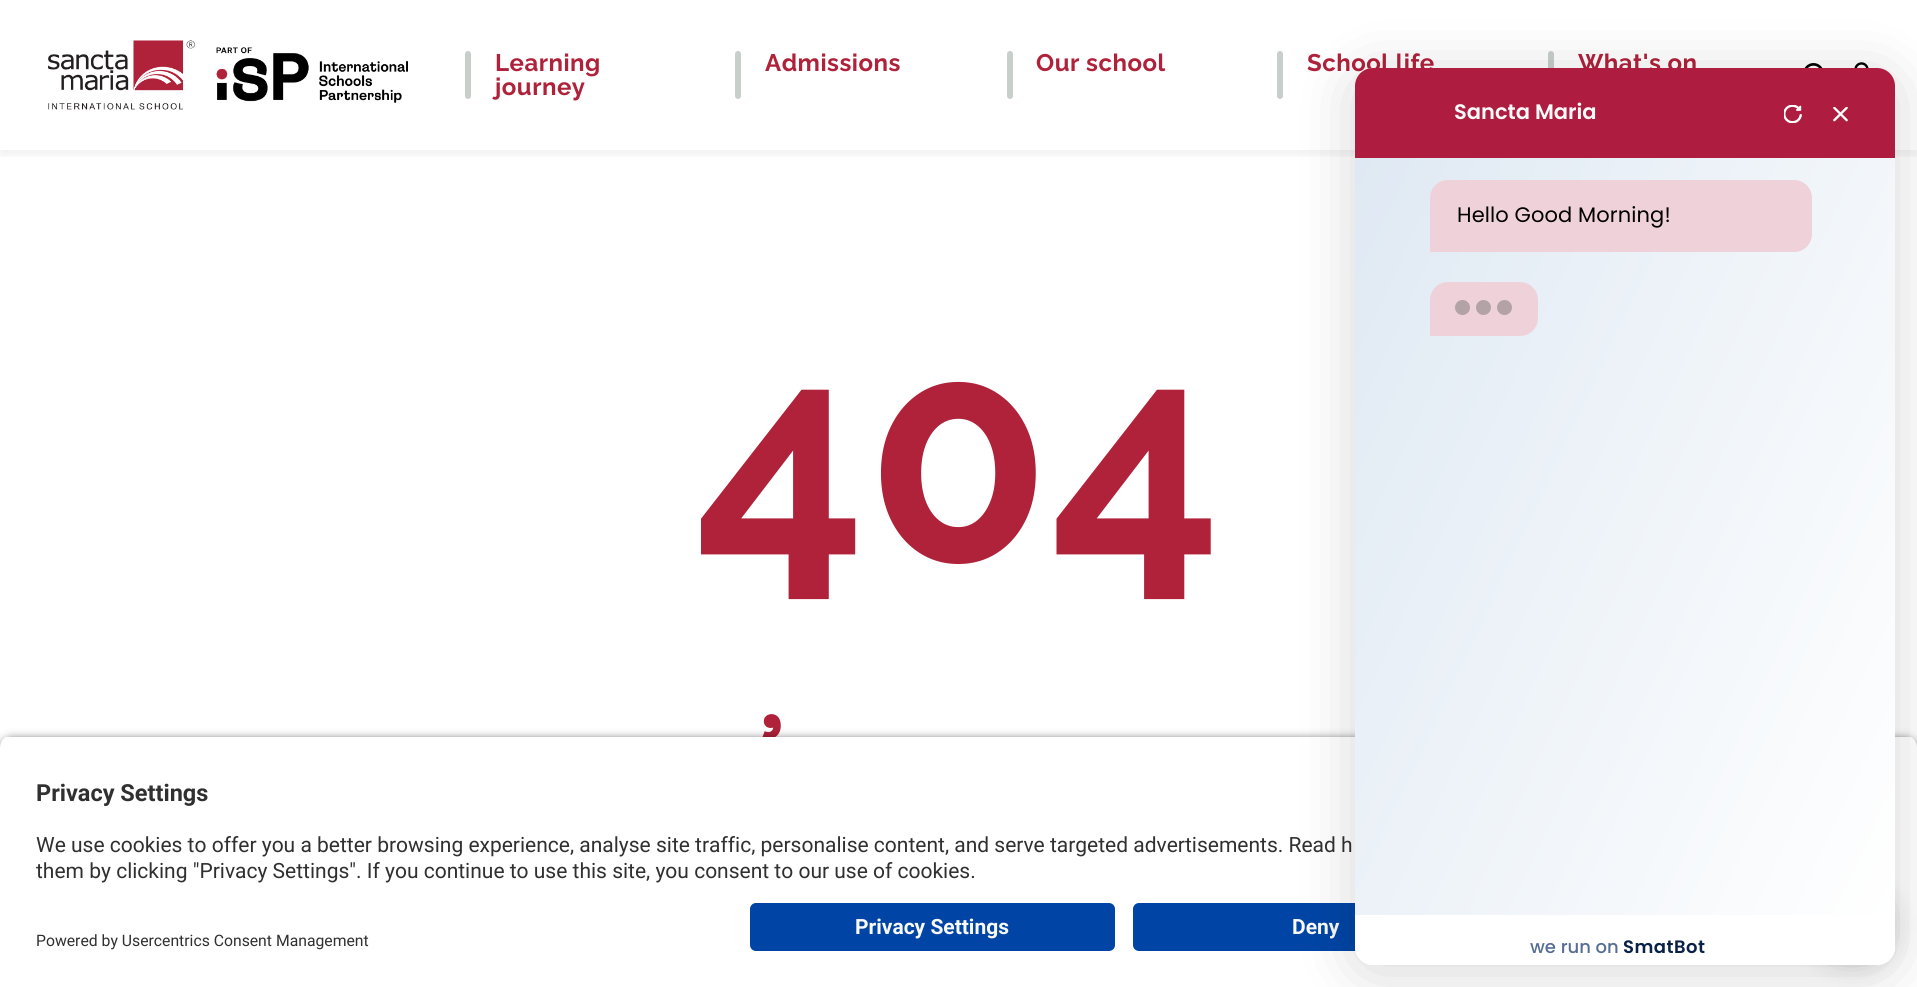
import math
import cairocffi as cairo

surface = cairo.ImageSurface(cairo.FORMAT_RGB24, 1917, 987)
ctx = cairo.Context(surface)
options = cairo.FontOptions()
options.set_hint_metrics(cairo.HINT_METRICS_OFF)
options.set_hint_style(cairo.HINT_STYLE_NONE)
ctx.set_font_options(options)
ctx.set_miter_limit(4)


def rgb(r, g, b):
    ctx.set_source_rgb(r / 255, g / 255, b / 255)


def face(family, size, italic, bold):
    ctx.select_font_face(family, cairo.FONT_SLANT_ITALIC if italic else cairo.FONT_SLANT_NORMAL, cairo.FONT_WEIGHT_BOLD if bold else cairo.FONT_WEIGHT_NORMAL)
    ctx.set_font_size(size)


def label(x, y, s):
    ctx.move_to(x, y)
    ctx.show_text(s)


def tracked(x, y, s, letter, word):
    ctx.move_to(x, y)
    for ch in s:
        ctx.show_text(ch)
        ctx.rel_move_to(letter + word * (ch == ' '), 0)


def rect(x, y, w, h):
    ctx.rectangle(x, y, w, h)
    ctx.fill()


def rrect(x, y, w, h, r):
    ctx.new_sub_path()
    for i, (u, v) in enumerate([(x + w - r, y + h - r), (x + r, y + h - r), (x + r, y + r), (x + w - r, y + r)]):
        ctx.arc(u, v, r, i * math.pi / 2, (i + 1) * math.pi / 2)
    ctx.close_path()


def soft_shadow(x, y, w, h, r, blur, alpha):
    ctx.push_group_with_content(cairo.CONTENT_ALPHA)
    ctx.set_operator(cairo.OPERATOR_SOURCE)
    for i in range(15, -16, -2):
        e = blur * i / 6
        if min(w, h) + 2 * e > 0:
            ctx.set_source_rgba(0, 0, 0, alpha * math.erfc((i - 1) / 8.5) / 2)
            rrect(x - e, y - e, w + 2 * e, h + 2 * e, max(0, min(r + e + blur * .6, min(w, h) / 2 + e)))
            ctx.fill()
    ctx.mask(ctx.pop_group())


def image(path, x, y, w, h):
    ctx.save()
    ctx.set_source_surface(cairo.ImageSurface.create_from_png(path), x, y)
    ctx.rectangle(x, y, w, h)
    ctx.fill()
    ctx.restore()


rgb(255, 255, 255)
ctx.paint()
ctx.save()
ctx.rectangle(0, 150, 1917, 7)
ctx.clip()
rgb(0, 0, 0)
soft_shadow(0, 6, 1917, 150, 0, 3, 0.05)
ctx.restore()
image('image0.png', 48, 40, 360, 70)
rgb(200, 206, 201)
rrect(465, 51, 6, 48, 3)
ctx.fill()
face('Raleway', 24, 0, 1)
rgb(176, 33, 58)
tracked(495, 71, 'Learning', 0.5, 0)
tracked(495, 95, 'journey', 0.5, 0)
rgb(200, 206, 201)
rrect(735, 51, 6, 48, 3)
ctx.fill()
rgb(176, 33, 58)
tracked(765, 71, 'Admissions', 0.5, 0)
rgb(200, 206, 201)
rrect(1007, 51, 6, 48, 3)
ctx.fill()
rgb(176, 33, 58)
tracked(1036, 71, 'Our school', 0.5, 0)
rgb(200, 206, 201)
rrect(1277, 51, 6, 48, 3)
ctx.fill()
rgb(176, 33, 58)
tracked(1307, 71, 'School life', 0.5, 0)
rgb(200, 206, 201)
rrect(1548, 51, 6, 48, 3)
ctx.fill()
rgb(176, 33, 58)
tracked(1578, 71, 'What\'s on', 0.5, 0)
image('image1.png', 1804, 63, 19, 5)
image('image2.png', 1854, 62, 15, 6)
face('Raleway', 300, 0, 1)
label(695, 561, '404')
face('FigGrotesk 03', 90, 0, 1)
label(761, 779, '’')
rgb(0, 0, 0)
soft_shadow(0, 740, 1917, 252, 12, 5, 0.8)
ctx.save()
ctx.new_path()
ctx.move_to(12, 735)
ctx.line_to(1905, 735)
ctx.curve_to(1911.5, 735, 1917, 740.5, 1917, 747)
ctx.line_to(1917, 891)
ctx.line_to(0, 891)
ctx.line_to(0, 747)
ctx.curve_to(0, 740.5, 5.5, 735, 12, 735)
ctx.close_path()
ctx.clip()
rgb(255, 255, 255)
rect(0, 737, 1917, 154)
ctx.restore()
face('Roboto', 23.5, 0, 1)
rgb(48, 48, 48)
label(36, 801, 'Privacy Settings')
face('Roboto', 21, 0, 0)
label(36, 852, 'We use cookies to offer you a better browsing experience, analyse site traffic, personalise content, and serve targeted advertisements. Read h')
label(36, 878, 'them by clicking "Privacy Settings". If you continue to use this site, you consent to our use of cookies.')
rgb(255, 255, 255)
rect(0, 891, 1917, 96)
rgb(0, 69, 165)
rrect(750, 903, 365, 48, 6)
ctx.fill()
face('Roboto', 21, 0, 1)
rgb(250, 250, 250)
label(855, 934, 'Privacy Settings')
rgb(0, 69, 165)
rrect(1133, 903, 366, 48, 6)
ctx.fill()
rgb(250, 250, 250)
label(1292, 934, 'Deny')
face('Roboto', 15.75, 0, 0)
rgb(48, 48, 48)
label(36, 946, 'Powered by Usercentrics Consent Management')
rgb(0, 0, 0)
soft_shadow(1355, 75, 540, 897, 18, 30, 0.16)
soft_shadow(1809, 881, 86, 85, 42.5, 12, 0.15)
rgb(255, 255, 255)
rrect(1355, 68, 540, 897, 18)
ctx.fill()
rgb(174, 28, 63)
ctx.new_path()
ctx.move_to(1373, 68)
ctx.line_to(1877, 68)
ctx.curve_to(1887, 68, 1895, 76, 1895, 86)
ctx.line_to(1895, 158)
ctx.line_to(1355, 158)
ctx.line_to(1355, 86)
ctx.curve_to(1355, 76, 1363, 68, 1373, 68)
ctx.close_path()
ctx.fill()
face('Poppins SemiBold', 21, 0, 0)
rgb(250, 250, 250)
label(1454, 119, 'Sancta Maria')
image('image3.png', 1784, 105, 18, 18)
image('image4.png', 1833, 107, 15, 15)
gradient = cairo.LinearGradient(1258, 365, 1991, 707)
gradient.add_color_stop_rgba(0, 0.875, 0.914, 0.953, 1)
gradient.add_color_stop_rgba(1, 1, 1, 1, 1)
ctx.set_source(gradient)
rect(1355, 158, 540, 757)
rgb(239, 210, 217)
ctx.new_path()
ctx.move_to(1448, 180)
ctx.line_to(1794, 180)
ctx.curve_to(1804, 180, 1812, 188, 1812, 198)
ctx.line_to(1812, 234)
ctx.curve_to(1812, 244, 1804, 252, 1794, 252)
ctx.line_to(1430, 252)
ctx.line_to(1430, 198)
ctx.curve_to(1430, 188, 1438, 180, 1448, 180)
ctx.close_path()
ctx.fill()
face('Poppins', 21, 0, 0)
rgb(0, 0, 0)
tracked(1457, 222, 'Hello Good Morning!', 0.1, 0)
rgb(239, 210, 217)
ctx.new_path()
ctx.move_to(1448, 282)
ctx.line_to(1520, 282)
ctx.curve_to(1530, 282, 1538, 290, 1538, 300)
ctx.line_to(1538, 318)
ctx.curve_to(1538, 328, 1530, 336, 1520, 336)
ctx.line_to(1430, 336)
ctx.line_to(1430, 300)
ctx.curve_to(1430, 290, 1438, 282, 1448, 282)
ctx.close_path()
ctx.fill()
rgb(179, 162, 166)
ctx.arc(1462.5, 307.5, 7.5, 0, 2 * math.pi)
ctx.fill()
ctx.arc(1483.5, 307.5, 7.5, 0, 2 * math.pi)
ctx.fill()
ctx.arc(1504.5, 307.5, 7.5, 0, 2 * math.pi)
ctx.fill()
ctx.save()
rrect(1355, 68, 540, 897, 18)
ctx.clip()
rgb(255, 255, 255)
ctx.new_path()
ctx.move_to(1355, 921)
ctx.line_to(1895, 921)
ctx.line_to(1895, 957)
ctx.curve_to(1895, 967, 1887, 975, 1877, 975)
ctx.line_to(1373, 975)
ctx.curve_to(1363, 975, 1355, 967, 1355, 957)
ctx.close_path()
ctx.fill()
ctx.restore()
face('Poppins Medium', 18, 0, 0)
rgb(87, 110, 147)
label(1530, 953, 'we run on')
face('Poppins SemiBold', 18, 0, 0)
rgb(9, 33, 72)
tracked(1623, 953, 'SmatBot', 0.5, 0)
surface.write_to_png('render.png')
